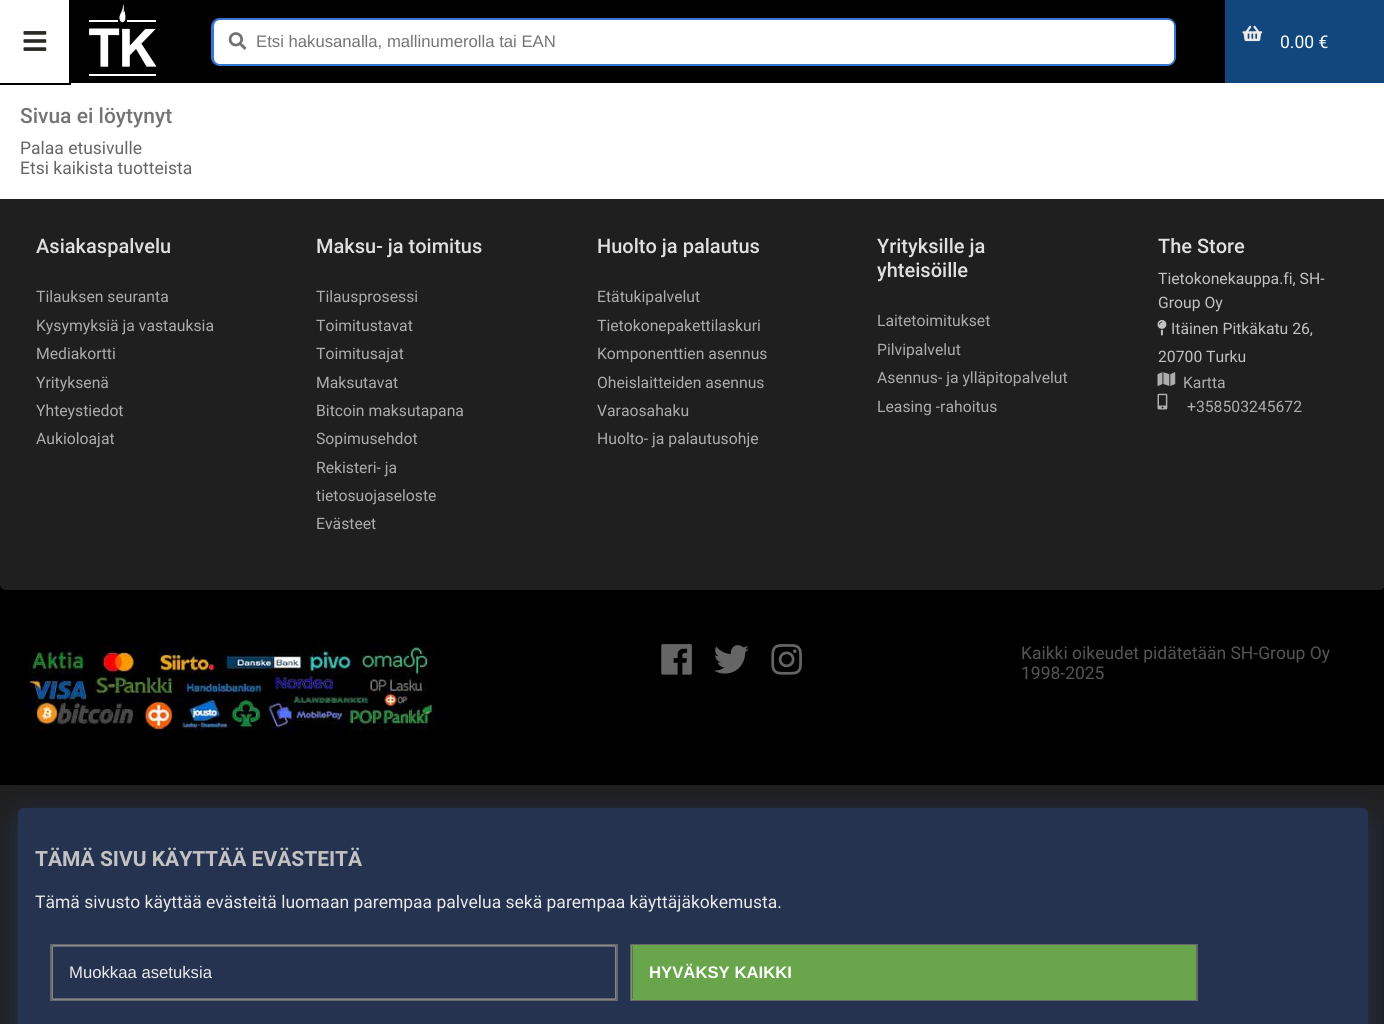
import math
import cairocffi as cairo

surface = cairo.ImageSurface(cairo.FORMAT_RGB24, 1384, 1024)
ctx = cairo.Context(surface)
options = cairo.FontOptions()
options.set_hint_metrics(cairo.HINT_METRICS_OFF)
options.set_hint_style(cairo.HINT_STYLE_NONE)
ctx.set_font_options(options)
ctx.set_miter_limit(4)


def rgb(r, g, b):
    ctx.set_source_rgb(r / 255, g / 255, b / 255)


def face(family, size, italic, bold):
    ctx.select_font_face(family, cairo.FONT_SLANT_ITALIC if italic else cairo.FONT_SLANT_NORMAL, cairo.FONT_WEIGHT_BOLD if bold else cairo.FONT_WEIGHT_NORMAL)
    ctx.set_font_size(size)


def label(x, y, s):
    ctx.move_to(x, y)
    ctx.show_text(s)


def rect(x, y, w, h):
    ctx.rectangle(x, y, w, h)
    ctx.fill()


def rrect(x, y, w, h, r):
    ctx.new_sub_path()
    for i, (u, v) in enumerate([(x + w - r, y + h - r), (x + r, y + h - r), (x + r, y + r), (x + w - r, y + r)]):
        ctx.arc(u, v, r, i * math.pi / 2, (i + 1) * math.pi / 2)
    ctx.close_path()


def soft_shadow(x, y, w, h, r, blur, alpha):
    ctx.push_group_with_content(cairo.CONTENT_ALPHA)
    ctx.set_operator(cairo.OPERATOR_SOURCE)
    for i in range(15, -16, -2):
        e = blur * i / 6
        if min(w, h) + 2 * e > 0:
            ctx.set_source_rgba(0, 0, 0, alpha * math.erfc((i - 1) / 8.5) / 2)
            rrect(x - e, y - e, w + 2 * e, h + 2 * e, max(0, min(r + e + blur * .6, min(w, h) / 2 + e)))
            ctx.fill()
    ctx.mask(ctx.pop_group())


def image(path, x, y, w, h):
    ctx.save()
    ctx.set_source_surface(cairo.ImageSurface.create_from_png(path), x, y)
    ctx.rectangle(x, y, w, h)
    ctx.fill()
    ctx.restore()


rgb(31, 31, 31)
ctx.paint()
rgb(0, 0, 0)
rect(71, 0, 1154, 83)
rgb(255, 255, 255)
rect(0, 83, 1384, 116)
ctx.rectangle(-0.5, -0.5, 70, 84)
rgb(0, 0, 0)
ctx.set_line_width(3)
ctx.stroke()
rgb(255, 255, 255)
rect(0, 0, 69, 83)
image('image0.png', 23, 31, 24, 20)
image('image1.png', 89, 4, 68, 72)
rrect(212.5, 19.5, 962, 45, 7.5)
rgb(55, 120, 212)
ctx.stroke()
rgb(255, 255, 255)
rrect(214, 20, 960, 44, 6)
ctx.fill()
image('image2.png', 228, 32, 19, 18)
face('Liberation Sans', 16.7, 0, 0)
rgb(116, 116, 117)
label(256, 47, 'Etsi hakusanalla, mallinumerolla tai EAN')
rgb(18, 71, 125)
rect(1225, 0, 159, 83)
image('image3.png', 1242, 25, 21, 17)
face('Roboto', 17.5, 0, 0)
rgb(255, 255, 255)
label(1280, 48, '0.00 €')
face('Roboto Medium', 21, 0, 0)
rgb(116, 116, 117)
label(20, 123, 'Sivua ei löytynyt')
face('Roboto', 17.5, 0, 0)
rgb(101, 101, 101)
label(20, 154, 'Palaa etusivulle')
label(20, 174, 'Etsi kaikista tuotteista')
rgb(0, 0, 0)
rect(0, 584, 1384, 201)
rgb(31, 31, 31)
ctx.new_path()
ctx.move_to(0, 199)
ctx.line_to(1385, 199)
ctx.line_to(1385, 584)
ctx.curve_to(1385, 587.5, 1382.5, 590, 1379, 590)
ctx.line_to(6, 590)
ctx.curve_to(2.5, 590, 0, 587.5, 0, 584)
ctx.close_path()
ctx.fill()
face('Roboto Medium', 20, 0, 0)
rgb(224, 224, 224)
label(36, 253, 'Asiakaspalvelu')
face('Roboto', 15.75, 0, 0)
rgb(173, 173, 173)
label(36, 302, 'Tilauksen seuranta')
label(36, 331, 'Kysymyksiä ja vastauksia')
label(36, 359, 'Mediakortti')
label(36, 388, 'Yrityksenä')
label(36, 416, 'Yhteystiedot')
label(36, 444, 'Aukioloajat')
face('Roboto Medium', 20, 0, 0)
rgb(224, 224, 224)
label(316, 253, 'Maksu- ja toimitus')
face('Roboto', 15.75, 0, 0)
rgb(173, 173, 173)
label(316, 302, 'Tilausprosessi')
label(316, 331, 'Toimitustavat')
label(316, 359, 'Toimitusajat')
label(316, 388, 'Maksutavat')
label(316, 416, 'Bitcoin maksutapana')
label(316, 444, 'Sopimusehdot')
label(316, 473, 'Rekisteri- ja')
label(316, 501, 'tietosuojaseloste')
label(316, 529, 'Evästeet')
face('Roboto Medium', 20, 0, 0)
rgb(224, 224, 224)
label(597, 253, 'Huolto ja palautus')
face('Roboto', 15.75, 0, 0)
rgb(173, 173, 173)
label(597, 302, 'Etätukipalvelut')
label(597, 331, 'Tietokonepakettilaskuri')
label(597, 359, 'Komponenttien asennus')
label(597, 388, 'Oheislaitteiden asennus')
label(597, 416, 'Varaosahaku')
label(597, 444, 'Huolto- ja palautusohje')
face('Roboto Medium', 20, 0, 0)
rgb(224, 224, 224)
label(877, 253, 'Yrityksille ja')
label(877, 277, 'yhteisöille')
face('Roboto', 15.75, 0, 0)
rgb(173, 173, 173)
label(877, 326, 'Laitetoimitukset')
label(877, 355, 'Pilvipalvelut')
label(877, 383, 'Asennus- ja ylläpitopalvelut')
label(877, 412, 'Leasing -rahoitus')
face('Roboto Medium', 20, 0, 0)
rgb(224, 224, 224)
label(1158, 253, 'The Store')
face('Roboto', 15.75, 0, 0)
rgb(194, 194, 194)
label(1158, 284, 'Tietokonekauppa.fi, SH-')
label(1158, 308, 'Group Oy')
image('image4.png', 1157, 320, 10, 16)
label(1171, 334, 'Itäinen Pitkäkatu 26,')
label(1158, 362, '20700 Turku')
image('image5.png', 1157, 372, 19, 14)
rgb(173, 173, 173)
label(1183, 388, 'Kartta')
image('image6.png', 1157, 393, 11, 17)
label(1187, 412, '+358503245672')
image('image7.png', 28, 645, 407, 85)
image('image8.png', 661, 644, 31, 31)
image('image9.png', 714, 645, 35, 29)
image('image10.png', 771, 644, 31, 31)
face('Roboto', 17.5, 0, 0)
rgb(85, 85, 85)
label(1021, 659, 'Kaikki oikeudet pidätetään SH-Group Oy')
label(1021, 679, '1998-2025')
rgb(37, 50, 80)
soft_shadow(18, 819, 1350, 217, 6, 16.5, 1)
rgb(37, 50, 80)
ctx.new_path()
ctx.move_to(24, 808)
ctx.line_to(1362, 808)
ctx.curve_to(1365.5, 808, 1368, 810.5, 1368, 814)
ctx.line_to(1368, 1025)
ctx.line_to(18, 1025)
ctx.line_to(18, 814)
ctx.curve_to(18, 810.5, 20.5, 808, 24, 808)
ctx.close_path()
ctx.fill()
face('Roboto', 21, 0, 1)
rgb(194, 194, 194)
label(35, 866, 'TÄMÄ SIVU KÄYTTÄÄ EVÄSTEITÄ')
face('Roboto', 17.5, 0, 0)
rgb(234, 234, 232)
label(35, 908, 'Tämä sivusto käyttää evästeitä luomaan parempaa palvelua sekä parempaa käyttäjäkokemusta.')
ctx.rectangle(51.5, 945.5, 565, 54)
rgb(102, 103, 107)
ctx.stroke()
ctx.save()
ctx.set_fill_rule(cairo.FILL_RULE_EVEN_ODD)
ctx.new_path()
ctx.move_to(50, 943)
ctx.line_to(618, 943)
ctx.line_to(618, 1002)
ctx.line_to(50, 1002)
ctx.close_path()
ctx.move_to(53, 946)
ctx.line_to(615, 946)
ctx.line_to(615, 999)
ctx.line_to(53, 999)
ctx.close_path()
ctx.clip()
rgb(234, 234, 232)
soft_shadow(53, 946, 562, 53, 0, 0.5, 1)
ctx.restore()
face('Liberation Sans', 16.7, 0, 0)
rgb(234, 234, 232)
label(69, 978, 'Muokkaa asetuksia')
ctx.rectangle(631.5, 945.5, 565, 54)
rgb(102, 103, 107)
ctx.stroke()
ctx.rectangle(631.5, 945.5, 564, 54)
rgb(104, 165, 75)
ctx.set_line_width(1)
ctx.stroke()
rect(633, 946, 562, 53)
face('Liberation Sans', 16.7, 0, 1)
rgb(255, 255, 255)
label(649, 978, 'HYVÄKSY KAIKKI')
surface.write_to_png('render.png')
